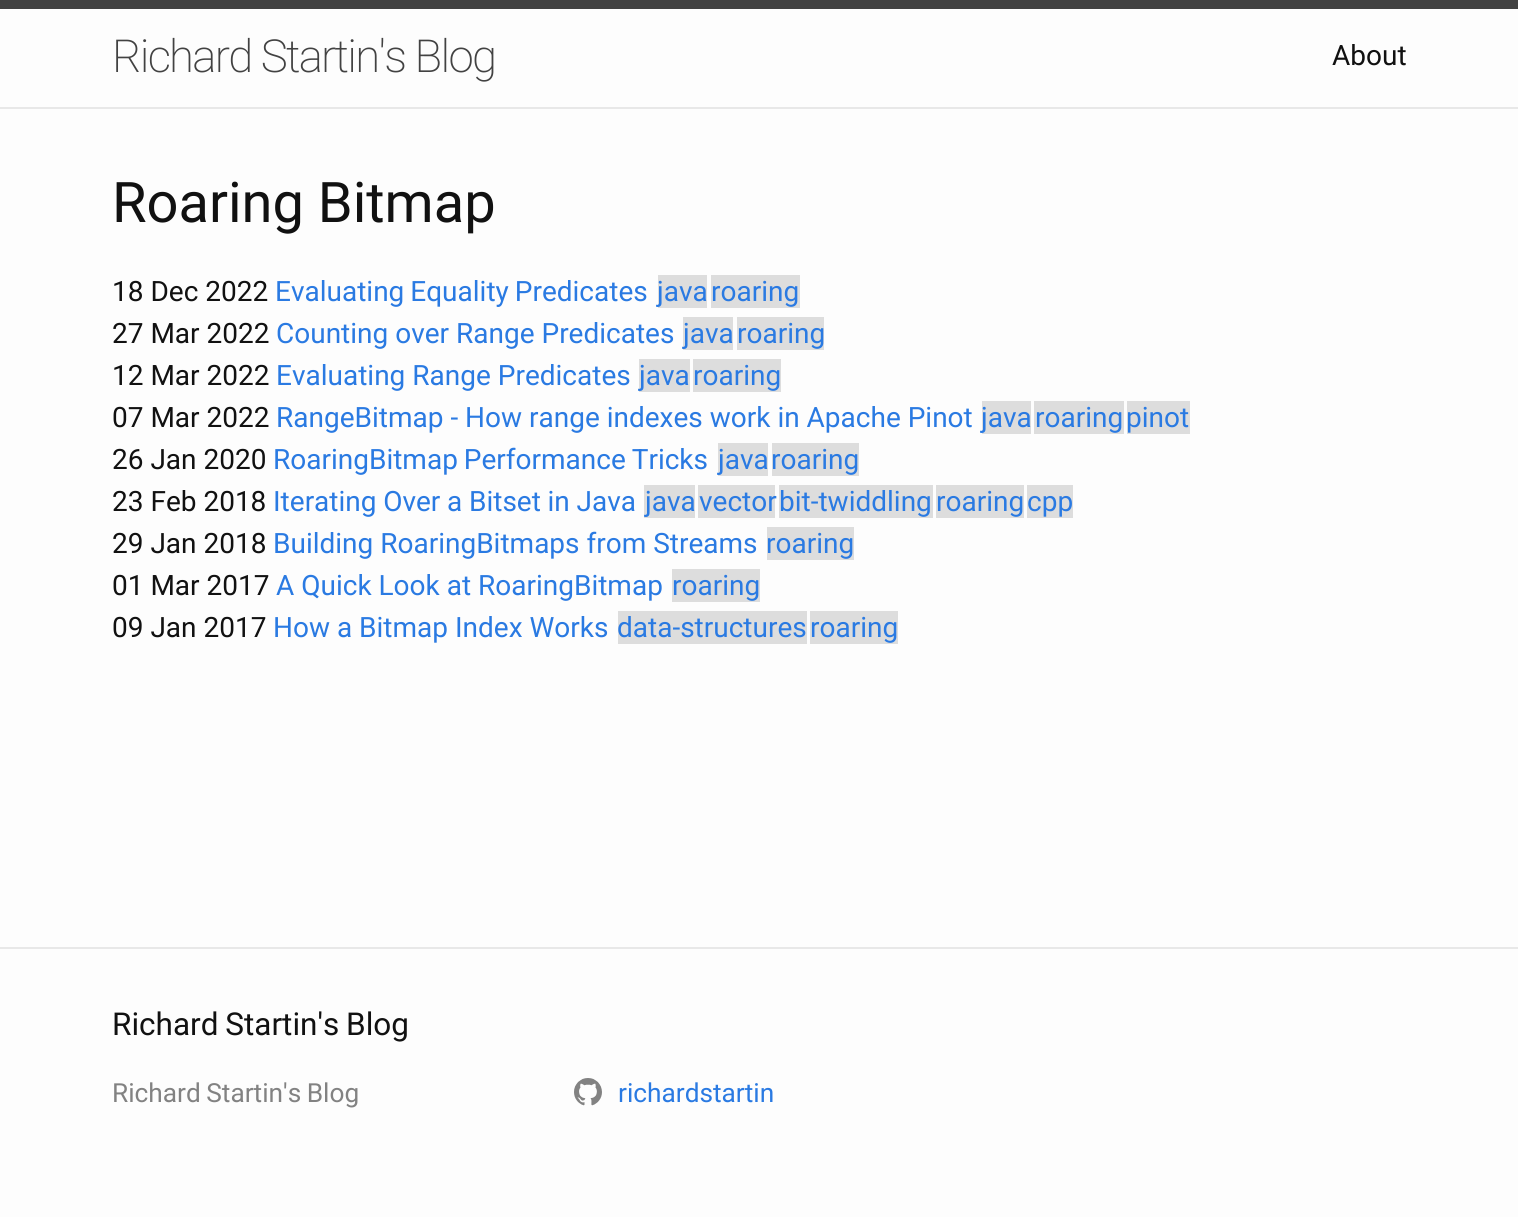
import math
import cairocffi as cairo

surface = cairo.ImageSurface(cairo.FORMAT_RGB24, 1518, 1217)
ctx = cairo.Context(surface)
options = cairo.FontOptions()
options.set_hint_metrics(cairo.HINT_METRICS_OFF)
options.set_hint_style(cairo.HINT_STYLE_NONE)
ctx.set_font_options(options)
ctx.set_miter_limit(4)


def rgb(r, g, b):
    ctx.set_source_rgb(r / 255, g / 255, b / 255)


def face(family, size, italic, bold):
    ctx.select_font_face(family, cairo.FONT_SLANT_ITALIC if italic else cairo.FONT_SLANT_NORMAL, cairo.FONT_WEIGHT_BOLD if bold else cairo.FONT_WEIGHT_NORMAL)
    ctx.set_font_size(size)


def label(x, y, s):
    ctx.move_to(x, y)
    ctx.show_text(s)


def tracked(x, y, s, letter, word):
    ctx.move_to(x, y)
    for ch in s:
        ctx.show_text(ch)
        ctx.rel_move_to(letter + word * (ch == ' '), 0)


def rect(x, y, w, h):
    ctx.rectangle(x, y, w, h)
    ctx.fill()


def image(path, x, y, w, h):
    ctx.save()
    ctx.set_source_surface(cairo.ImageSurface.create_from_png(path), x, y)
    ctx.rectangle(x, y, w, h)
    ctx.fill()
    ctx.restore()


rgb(253, 253, 253)
ctx.paint()
rgb(66, 66, 66)
rect(0, 0, 1518, 9)
rgb(232, 232, 232)
rect(0, 107, 1518, 2)
face('Roboto ExtraLight', 45.5, 0, 0)
rgb(66, 66, 66)
tracked(112, 72, 'Richard Startin\'s Blog', -1.75, 0)
face('Roboto', 28, 0, 0)
rgb(17, 17, 17)
label(1332, 65, 'About')
face('Roboto', 56, 0, 0)
label(112, 222, 'Roaring Bitmap')
face('Roboto', 28, 0, 0)
label(112, 301, '18 Dec 2022')
rgb(42, 122, 226)
tracked(275, 301, 'Evaluating Equality Predicates', 0, -1)
rgb(221, 221, 221)
rect(658, 275, 49, 33)
rgb(42, 122, 226)
label(657, 301, 'java')
rgb(221, 221, 221)
rect(711, 275, 89, 33)
rgb(42, 122, 226)
label(711, 301, 'roaring')
rgb(17, 17, 17)
label(112, 343, '27 Mar 2022')
rgb(42, 122, 226)
label(276, 343, 'Counting over Range Predicates')
rgb(221, 221, 221)
rect(683, 317, 50, 33)
rgb(42, 122, 226)
label(683, 343, 'java')
rgb(221, 221, 221)
rect(737, 317, 87, 33)
rgb(42, 122, 226)
label(737, 343, 'roaring')
rgb(17, 17, 17)
label(112, 385, '12 Mar 2022')
rgb(42, 122, 226)
label(276, 385, 'Evaluating Range Predicates')
rgb(221, 221, 221)
rect(639, 359, 51, 33)
rgb(42, 122, 226)
label(639, 385, 'java')
rgb(221, 221, 221)
rect(693, 359, 88, 33)
rgb(42, 122, 226)
label(693, 385, 'roaring')
rgb(17, 17, 17)
label(112, 427, '07 Mar 2022')
rgb(42, 122, 226)
label(276, 427, 'RangeBitmap - How range indexes work in Apache Pinot')
rgb(221, 221, 221)
rect(982, 401, 49, 33)
rgb(42, 122, 226)
label(981, 427, 'java')
rgb(221, 221, 221)
rect(1034, 401, 90, 33)
rgb(42, 122, 226)
label(1035, 427, 'roaring')
rgb(221, 221, 221)
rect(1127, 401, 63, 33)
rgb(42, 122, 226)
label(1126, 427, 'pinot')
rgb(17, 17, 17)
label(112, 469, '26 Jan 2020')
rgb(42, 122, 226)
tracked(273, 469, 'RoaringBitmap Performance Tricks', 0, -1)
rgb(221, 221, 221)
rect(718, 443, 50, 33)
rgb(42, 122, 226)
label(718, 469, 'java')
rgb(221, 221, 221)
rect(772, 443, 87, 33)
rgb(42, 122, 226)
label(771, 469, 'roaring')
rgb(17, 17, 17)
label(112, 511, '23 Feb 2018')
rgb(42, 122, 226)
tracked(273, 511, 'Iterating Over a Bitset in Java', 0, -0.25)
rgb(221, 221, 221)
rect(644, 485, 51, 33)
rgb(42, 122, 226)
label(645, 511, 'java')
rgb(221, 221, 221)
rect(698, 485, 77, 33)
rgb(42, 122, 226)
label(699, 511, 'vector')
rgb(221, 221, 221)
rect(779, 485, 154, 33)
rgb(42, 122, 226)
label(779, 511, 'bit-twiddling')
rgb(221, 221, 221)
rect(936, 485, 88, 33)
rgb(42, 122, 226)
label(936, 511, 'roaring')
rgb(221, 221, 221)
rect(1027, 485, 46, 33)
rgb(42, 122, 226)
label(1027, 511, 'cpp')
rgb(17, 17, 17)
label(112, 553, '29 Jan 2018')
rgb(42, 122, 226)
label(273, 553, 'Building RoaringBitmaps from Streams')
rgb(221, 221, 221)
rect(767, 527, 87, 33)
rgb(42, 122, 226)
label(766, 553, 'roaring')
rgb(17, 17, 17)
label(112, 595, '01 Mar 2017')
rgb(42, 122, 226)
label(276, 595, 'A Quick Look at RoaringBitmap')
rgb(221, 221, 221)
rect(672, 569, 88, 33)
rgb(42, 122, 226)
label(672, 595, 'roaring')
rgb(17, 17, 17)
label(112, 637, '09 Jan 2017')
rgb(42, 122, 226)
label(273, 637, 'How a Bitmap Index Works')
rgb(221, 221, 221)
rect(618, 611, 189, 33)
rgb(42, 122, 226)
label(617, 637, 'data-structures')
rgb(221, 221, 221)
rect(810, 611, 88, 33)
rgb(42, 122, 226)
label(810, 637, 'roaring')
rgb(232, 232, 232)
rect(0, 947, 1518, 2)
face('Roboto', 31.5, 0, 0)
rgb(17, 17, 17)
tracked(112, 1035, 'Richard Startin\'s Blog', 0, -1)
face('Roboto', 26.25, 0, 0)
rgb(130, 130, 130)
tracked(112, 1102, 'Richard Startin\'s Blog', 0, -1)
image('image0.png', 574, 1078, 28, 28)
rgb(42, 122, 226)
label(618, 1102, 'richardstartin')
surface.write_to_png('render.png')
